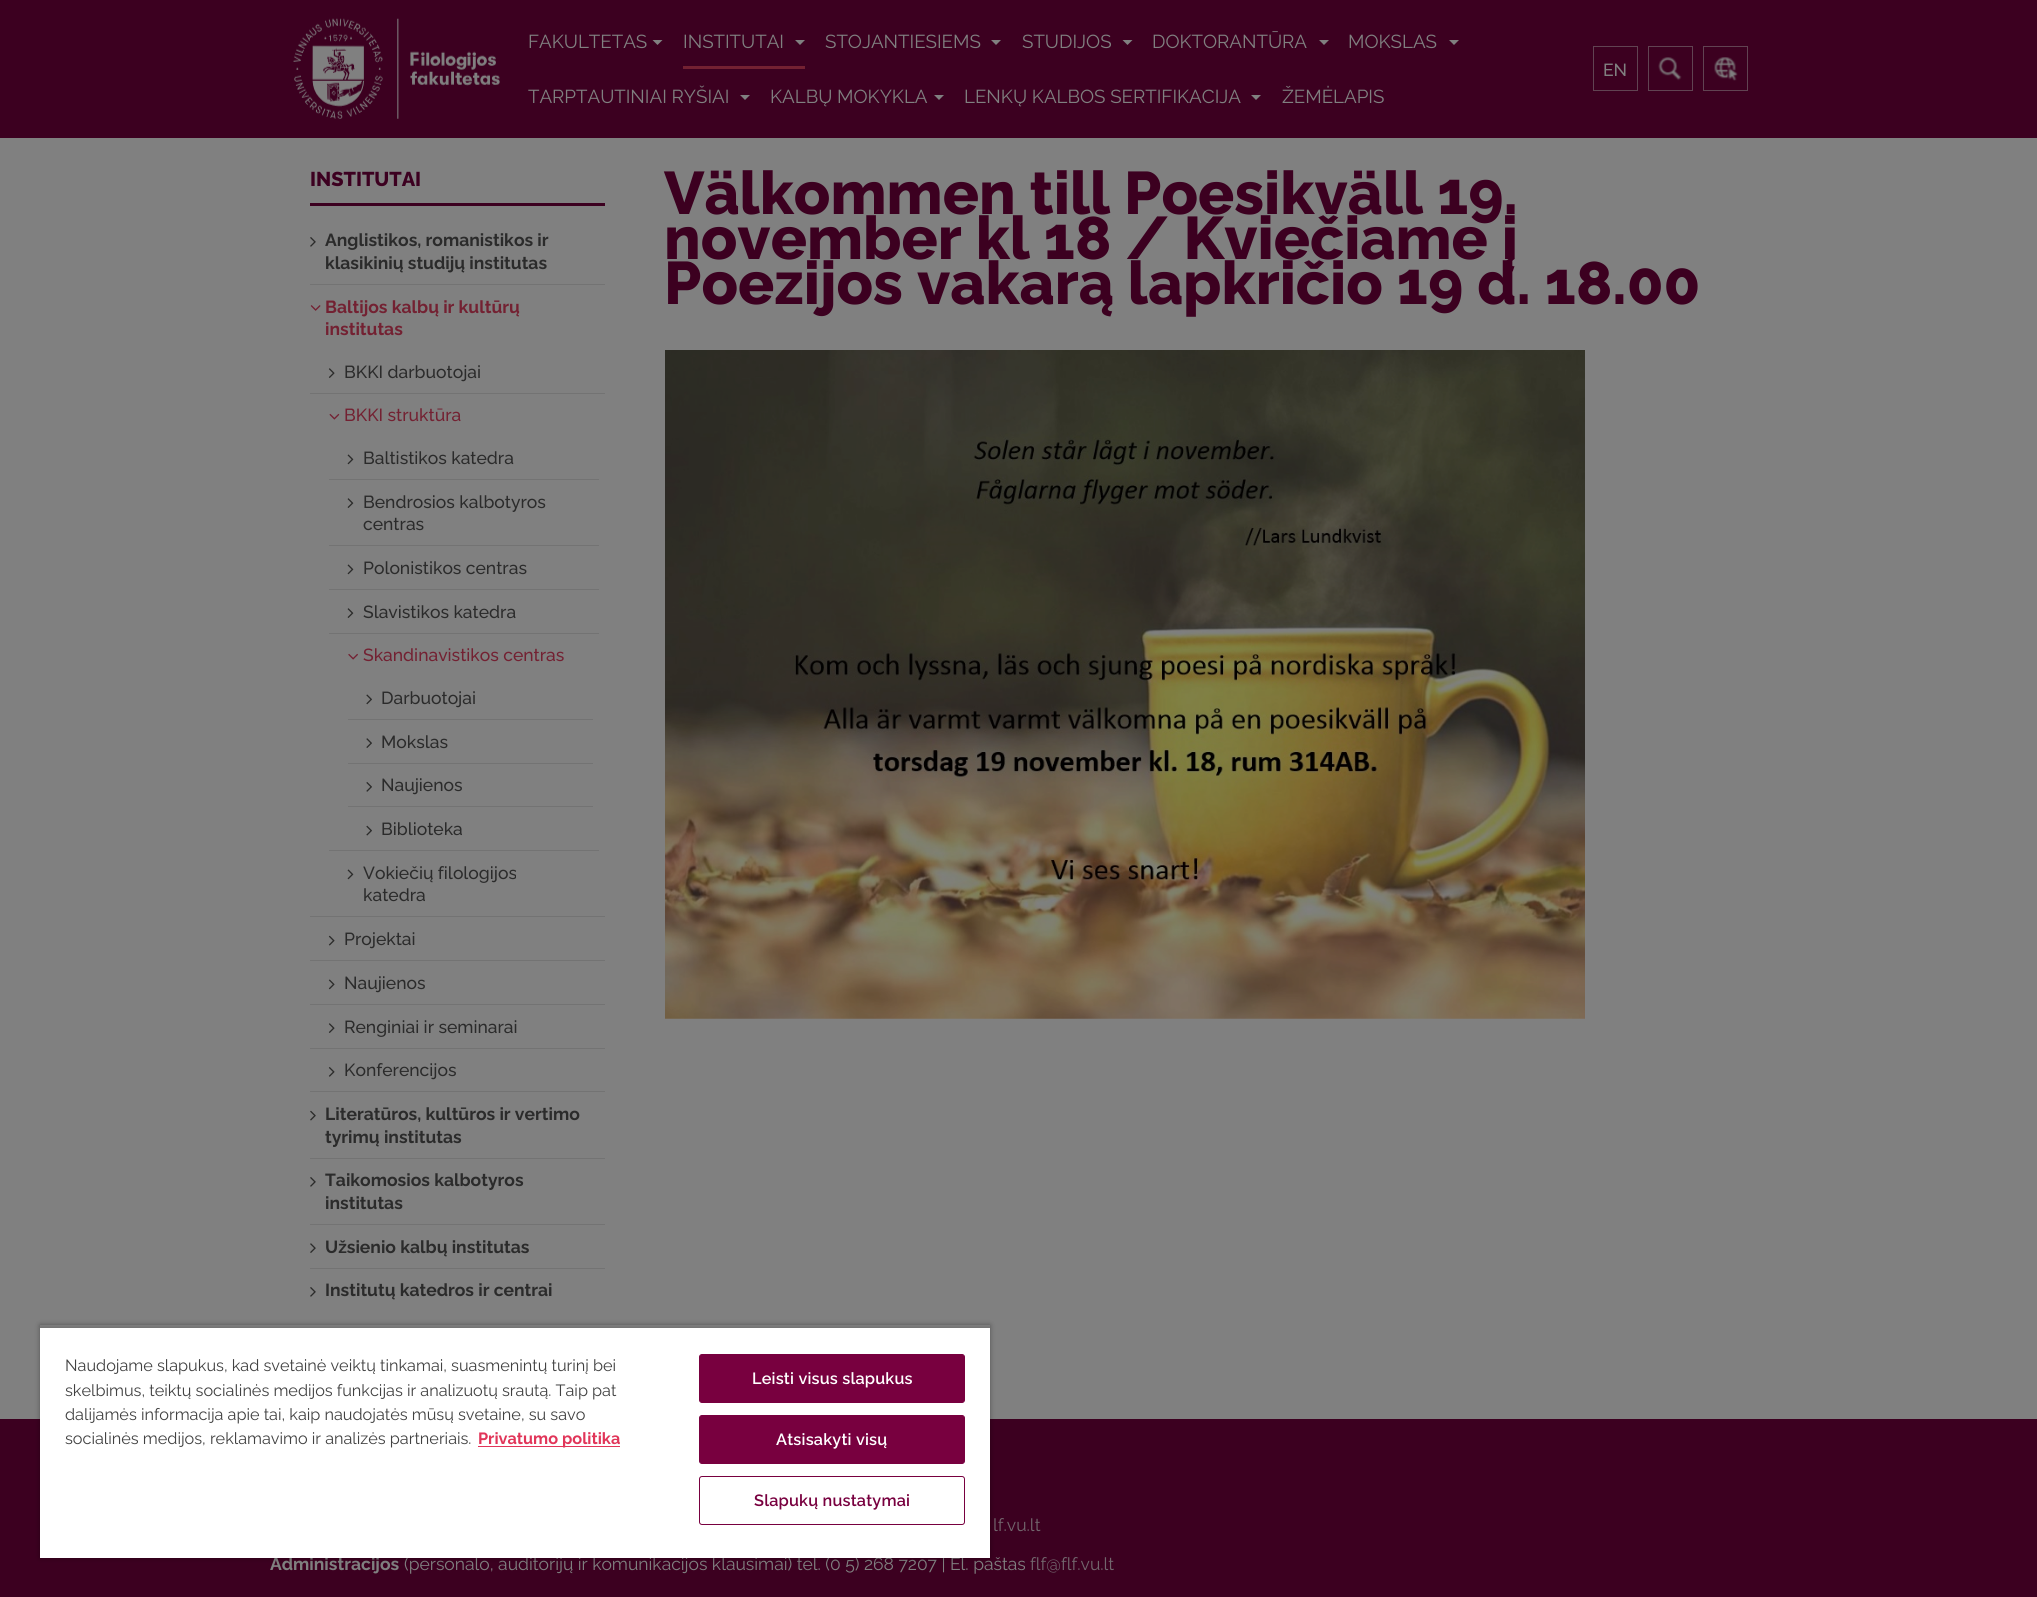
import math
import cairocffi as cairo

surface = cairo.ImageSurface(cairo.FORMAT_RGB24, 2037, 1597)
ctx = cairo.Context(surface)
options = cairo.FontOptions()
options.set_hint_metrics(cairo.HINT_METRICS_OFF)
options.set_hint_style(cairo.HINT_STYLE_NONE)
ctx.set_font_options(options)
ctx.set_miter_limit(4)


def rgb(r, g, b):
    ctx.set_source_rgb(r / 255, g / 255, b / 255)


def face(family, size, italic, bold):
    ctx.select_font_face(family, cairo.FONT_SLANT_ITALIC if italic else cairo.FONT_SLANT_NORMAL, cairo.FONT_WEIGHT_BOLD if bold else cairo.FONT_WEIGHT_NORMAL)
    ctx.set_font_size(size)


def label(x, y, s):
    ctx.move_to(x, y)
    ctx.show_text(s)


def tracked(x, y, s, letter, word):
    ctx.move_to(x, y)
    for ch in s:
        ctx.show_text(ch)
        ctx.rel_move_to(letter + word * (ch == ' '), 0)


def rect(x, y, w, h):
    ctx.rectangle(x, y, w, h)
    ctx.fill()


def rrect(x, y, w, h, r):
    ctx.new_sub_path()
    for i, (u, v) in enumerate([(x + w - r, y + h - r), (x + r, y + h - r), (x + r, y + r), (x + w - r, y + r)]):
        ctx.arc(u, v, r, i * math.pi / 2, (i + 1) * math.pi / 2)
    ctx.close_path()


def soft_shadow(x, y, w, h, r, blur, alpha):
    ctx.push_group_with_content(cairo.CONTENT_ALPHA)
    ctx.set_operator(cairo.OPERATOR_SOURCE)
    for i in range(15, -16, -2):
        e = blur * i / 6
        if min(w, h) + 2 * e > 0:
            ctx.set_source_rgba(0, 0, 0, alpha * math.erfc((i - 1) / 8.5) / 2)
            rrect(x - e, y - e, w + 2 * e, h + 2 * e, max(0, min(r + e + blur * .6, min(w, h) / 2 + e)))
            ctx.fill()
    ctx.mask(ctx.pop_group())


def image(path, x, y, w, h):
    ctx.save()
    ctx.set_source_surface(cairo.ImageSurface.create_from_png(path), x, y)
    ctx.rectangle(x, y, w, h)
    ctx.fill()
    ctx.restore()


rgb(128, 128, 128)
ctx.paint()
rgb(60, 0, 32)
rect(0, 0, 2037, 138)
image('image0.png', 293, 18, 207, 101)
face('Raleway', 18.75, 0, 0)
rgb(128, 128, 128)
label(528, 48, 'FAKULTETAS')
ctx.new_path()
ctx.move_to(652.5, 40)
ctx.line_to(662.5, 40)
ctx.line_to(657.5, 45)
ctx.close_path()
ctx.fill()
label(683, 48, 'INSTITUTAI')
ctx.new_path()
ctx.move_to(795, 40)
ctx.line_to(805, 40)
ctx.line_to(800, 45)
ctx.close_path()
ctx.fill()
rgb(115, 33, 50)
rect(683, 66, 122, 3)
rgb(128, 128, 128)
label(825, 48, 'STOJANTIESIEMS')
ctx.new_path()
ctx.move_to(991, 40)
ctx.line_to(1001, 40)
ctx.line_to(996, 45)
ctx.close_path()
ctx.fill()
label(1022, 48, 'STUDIJOS')
ctx.new_path()
ctx.move_to(1122.5, 40)
ctx.line_to(1132.5, 40)
ctx.line_to(1127.5, 45)
ctx.close_path()
ctx.fill()
label(1152, 48, 'DOKTORANTŪRA')
ctx.new_path()
ctx.move_to(1319, 40)
ctx.line_to(1329, 40)
ctx.line_to(1324, 45)
ctx.close_path()
ctx.fill()
label(1348, 48, 'MOKSLAS')
ctx.new_path()
ctx.move_to(1449, 40)
ctx.line_to(1459, 40)
ctx.line_to(1454, 45)
ctx.close_path()
ctx.fill()
label(528, 103, 'TARPTAUTINIAI RYŠIAI')
ctx.new_path()
ctx.move_to(740, 95)
ctx.line_to(750, 95)
ctx.line_to(745, 100)
ctx.close_path()
ctx.fill()
label(770, 103, 'KALBŲ MOKYKLA')
ctx.new_path()
ctx.move_to(934, 95)
ctx.line_to(944, 95)
ctx.line_to(939, 100)
ctx.close_path()
ctx.fill()
label(964, 103, 'LENKŲ KALBOS SERTIFIKACIJA')
ctx.new_path()
ctx.move_to(1251, 95)
ctx.line_to(1261, 95)
ctx.line_to(1256, 100)
ctx.close_path()
ctx.fill()
label(1282, 103, 'ŽEMĖLAPIS')
ctx.rectangle(1593.5, 46.5, 44, 44)
rgb(97, 67, 82)
ctx.set_line_width(1)
ctx.stroke()
face('Raleway Medium', 17.5, 0, 0)
rgb(128, 128, 128)
label(1603, 76, 'EN')
image('image1.png', 1658, 57, 24, 24)
ctx.rectangle(1648.5, 46.5, 44, 44)
rgb(97, 67, 82)
ctx.stroke()
ctx.rectangle(1703.5, 46.5, 44, 44)
ctx.stroke()
image('image2.png', 1714, 57, 24, 24)
rgb(60, 0, 32)
rect(310, 203, 295, 3)
face('Raleway ExtraBold', 20, 0, 0)
label(310, 186, 'INSTITUTAI')
rgb(115, 115, 115)
rect(310, 284, 295, 1)
image('image3.png', 310, 237, 6, 10)
face('Raleway', 17.5, 0, 1)
rgb(43, 43, 43)
label(325, 246, 'Anglistikos, romanistikos ir')
label(325, 269, 'klasikinių studijų institutas')
rgb(115, 115, 115)
rect(310, 1091, 295, 1)
image('image4.png', 310, 305, 11, 6)
rgb(115, 33, 50)
label(325, 313, 'Baltijos kalbų ir kultūrų')
label(325, 335, 'institutas')
rgb(115, 115, 115)
rect(310, 393, 295, 1)
image('image5.png', 328, 368, 7, 10)
face('Raleway Medium', 17.5, 0, 0)
rgb(43, 43, 43)
label(344, 378, 'BKKI darbuotojai')
rgb(115, 115, 115)
rect(310, 916, 295, 1)
image('image6.png', 329, 413, 11, 7)
rgb(115, 33, 50)
label(344, 421, 'BKKI struktūra')
rgb(115, 115, 115)
rect(329, 479, 270, 1)
image('image7.png', 347, 454, 7, 11)
rgb(43, 43, 43)
label(363, 464, 'Baltistikos katedra')
rgb(115, 115, 115)
rect(329, 545, 270, 1)
image('image8.png', 347, 498, 7, 10)
rgb(43, 43, 43)
label(363, 508, 'Bendrosios kalbotyros')
label(363, 530, 'centras')
rgb(115, 115, 115)
rect(329, 589, 270, 1)
image('image7.png', 347, 564, 7, 11)
rgb(43, 43, 43)
label(363, 574, 'Polonistikos centras')
rgb(115, 115, 115)
rect(329, 633, 270, 1)
image('image8.png', 347, 608, 7, 10)
rgb(43, 43, 43)
label(363, 618, 'Slavistikos katedra')
rgb(115, 115, 115)
rect(329, 850, 270, 1)
image('image9.png', 348, 653, 10, 7)
rgb(115, 33, 50)
label(363, 661, 'Skandinavistikos centras')
rgb(115, 115, 115)
rect(348, 719, 245, 1)
image('image10.png', 366, 694, 6, 11)
rgb(43, 43, 43)
label(381, 704, 'Darbuotojai')
rgb(115, 115, 115)
rect(348, 763, 245, 1)
image('image11.png', 366, 738, 6, 10)
rgb(43, 43, 43)
label(381, 748, 'Mokslas')
rgb(115, 115, 115)
rect(348, 806, 245, 1)
image('image12.png', 366, 782, 6, 10)
rgb(43, 43, 43)
label(381, 791, 'Naujienos')
image('image13.png', 366, 825, 6, 11)
label(381, 835, 'Biblioteka')
image('image7.png', 347, 869, 7, 11)
label(363, 879, 'Vokiečių filologijos')
label(363, 901, 'katedra')
rgb(115, 115, 115)
rect(310, 960, 295, 1)
image('image14.png', 328, 935, 7, 11)
rgb(43, 43, 43)
label(344, 945, 'Projektai')
rgb(115, 115, 115)
rect(310, 1004, 295, 1)
image('image15.png', 328, 979, 7, 11)
rgb(43, 43, 43)
label(344, 989, 'Naujienos')
rgb(115, 115, 115)
rect(310, 1048, 295, 1)
image('image5.png', 328, 1023, 7, 10)
rgb(43, 43, 43)
label(344, 1033, 'Renginiai ir seminarai')
image('image16.png', 328, 1067, 7, 10)
label(344, 1076, 'Konferencijos')
rgb(115, 115, 115)
rect(310, 1158, 295, 1)
image('image17.png', 310, 1110, 6, 11)
face('Raleway', 17.5, 0, 1)
rgb(43, 43, 43)
label(325, 1120, 'Literatūros, kultūros ir vertimo')
label(325, 1143, 'tyrimų institutas')
rgb(115, 115, 115)
rect(310, 1224, 295, 1)
image('image3.png', 310, 1177, 6, 10)
rgb(43, 43, 43)
label(325, 1186, 'Taikomosios kalbotyros')
label(325, 1209, 'institutas')
rgb(115, 115, 115)
rect(310, 1268, 295, 1)
image('image18.png', 310, 1243, 6, 10)
rgb(43, 43, 43)
label(325, 1253, 'Užsienio kalbų institutas')
image('image3.png', 310, 1287, 6, 10)
label(325, 1296, 'Institutų katedros ir centrai')
face('Raleway ExtraBold', 60, 0, 0)
rgb(60, 0, 32)
label(664, 214, 'Välkommen till Poesikväll 19.')
label(664, 259, 'november kl 18 / Kviečiame į')
label(664, 304, 'Poezijos vakarą lapkričio 19 d. 18.00')
image('image19.png', 665, 350, 920, 669)
rect(0, 1419, 2037, 178)
face('Raleway', 17.5, 0, 0)
rgb(114, 102, 109)
label(993, 1531, 'lf.vu.lt')
face('Raleway', 17.5, 0, 1)
rgb(128, 128, 128)
label(270, 1570, 'Administracijos')
face('Raleway', 17.5, 0, 0)
label(404, 1570, '(personalo, auditorijų ir komunikacijos klausimai) tel. (0 5) 268 7207 | El. paštas')
rgb(114, 102, 109)
label(1030, 1570, 'flf@flf.vu.lt')
ctx.save()
ctx.set_fill_rule(cairo.FILL_RULE_EVEN_ODD)
ctx.new_path()
ctx.move_to(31, 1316)
ctx.line_to(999, 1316)
ctx.line_to(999, 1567)
ctx.line_to(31, 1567)
ctx.close_path()
ctx.move_to(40, 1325)
ctx.line_to(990, 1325)
ctx.line_to(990, 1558)
ctx.line_to(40, 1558)
ctx.close_path()
ctx.clip()
rgb(0, 0, 0)
soft_shadow(40, 1325, 950, 233, 0, 2.5, 0.35)
ctx.restore()
ctx.save()
ctx.rectangle(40, 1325, 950, 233)
ctx.clip()
rgb(0, 0, 0)
soft_shadow(40, 1328, 950, 230, 0, 2.5, 0.2)
ctx.restore()
rgb(255, 255, 255)
rect(40, 1328, 950, 230)
face('Raleway', 16.25, 0, 0)
rgb(65, 65, 65)
label(65, 1371, 'Naudojame slapukus, kad svetainė veiktų tinkamai, suasmenintų turinį bei')
label(65, 1396, 'skelbimus, teiktų socialinės medijos funkcijas ir analizuotų srautą. Taip pat')
label(65, 1420, 'dalijamės informacija apie tai, kaip naudojatės mūsų svetaine, su savo')
label(65, 1444, 'socialinės medijos, reklamavimo ir analizės partneriais.')
rgb(225, 53, 89)
rect(478, 1446, 142, 1)
face('Raleway', 16.25, 0, 1)
label(478, 1444, 'Privatumo politika')
rgb(120, 0, 63)
rrect(699.5, 1354.5, 265, 48, 2.5)
ctx.fill_preserve()
ctx.stroke()
face('Raleway SemiBold', 16.25, 0, 0)
rgb(255, 255, 255)
tracked(752, 1384, 'Leisti visus slapukus', 0.2, 0)
rgb(120, 0, 63)
rrect(699.5, 1415.5, 265, 48, 2.5)
ctx.fill_preserve()
ctx.stroke()
rgb(255, 255, 255)
tracked(776, 1445, 'Atsisakyti visų', 0.2, 0)
rrect(699.5, 1476.5, 265, 48, 2.5)
rgb(120, 0, 63)
ctx.stroke()
tracked(754, 1506, 'Slapukų nustatymai', 0.2, 0)
surface.write_to_png('render.png')
